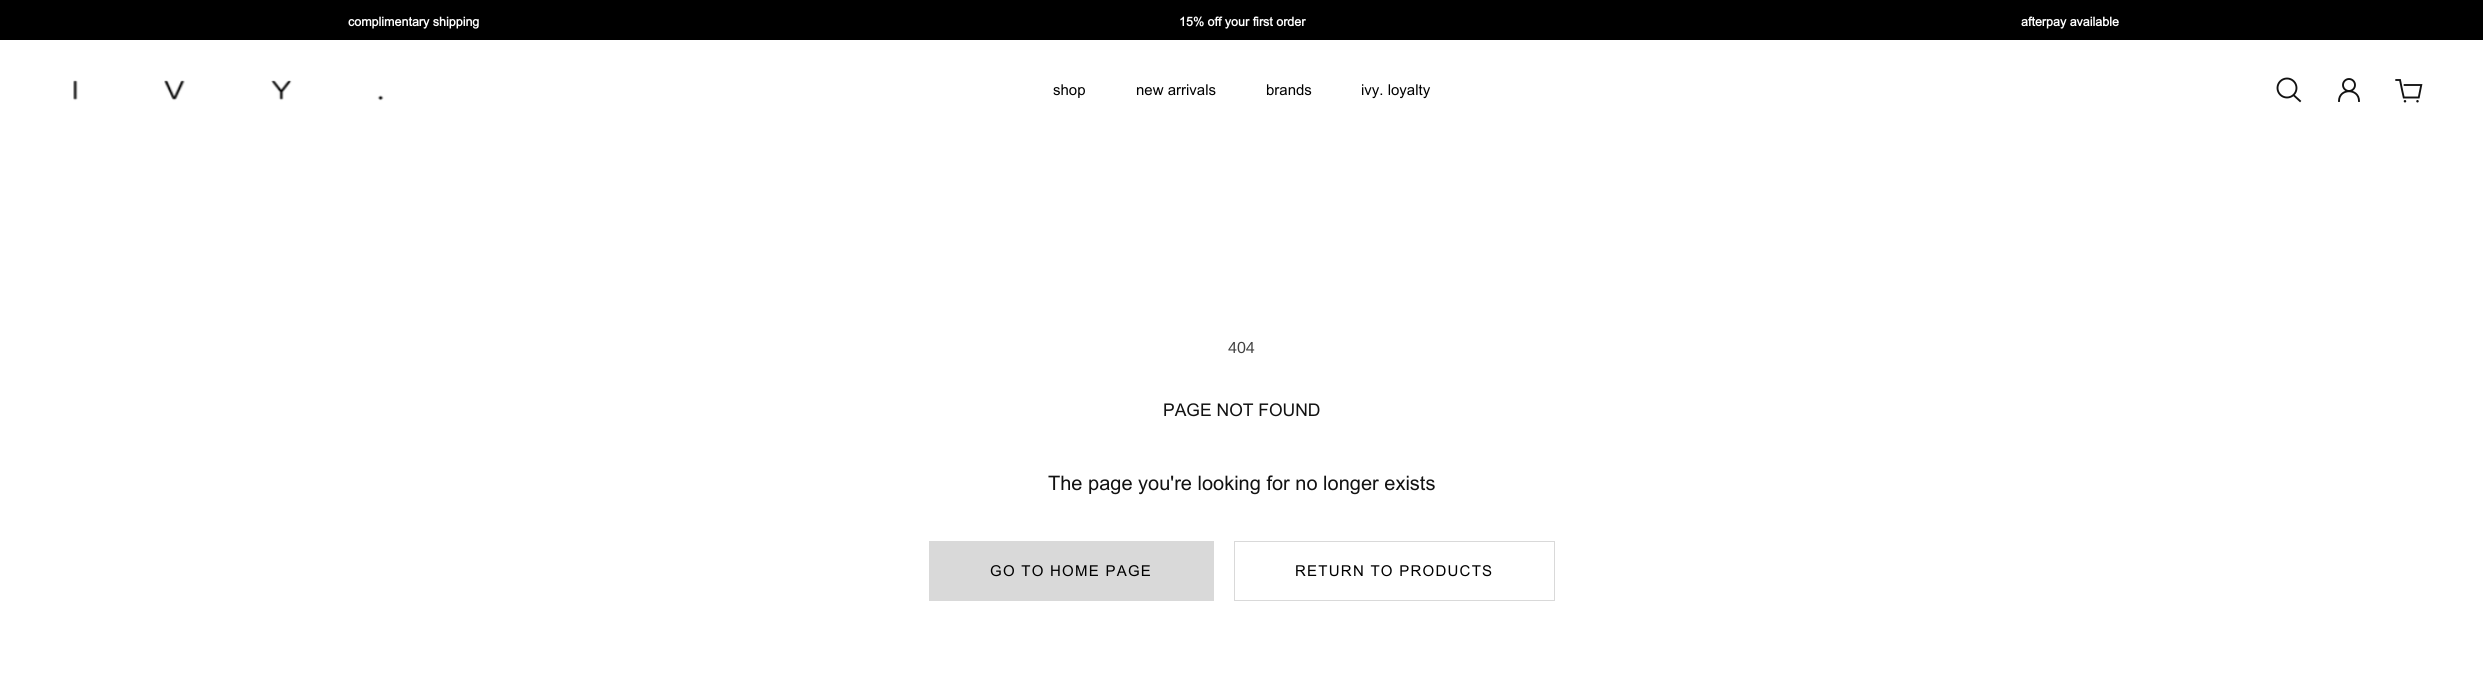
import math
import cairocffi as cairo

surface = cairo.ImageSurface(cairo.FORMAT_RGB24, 2483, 692)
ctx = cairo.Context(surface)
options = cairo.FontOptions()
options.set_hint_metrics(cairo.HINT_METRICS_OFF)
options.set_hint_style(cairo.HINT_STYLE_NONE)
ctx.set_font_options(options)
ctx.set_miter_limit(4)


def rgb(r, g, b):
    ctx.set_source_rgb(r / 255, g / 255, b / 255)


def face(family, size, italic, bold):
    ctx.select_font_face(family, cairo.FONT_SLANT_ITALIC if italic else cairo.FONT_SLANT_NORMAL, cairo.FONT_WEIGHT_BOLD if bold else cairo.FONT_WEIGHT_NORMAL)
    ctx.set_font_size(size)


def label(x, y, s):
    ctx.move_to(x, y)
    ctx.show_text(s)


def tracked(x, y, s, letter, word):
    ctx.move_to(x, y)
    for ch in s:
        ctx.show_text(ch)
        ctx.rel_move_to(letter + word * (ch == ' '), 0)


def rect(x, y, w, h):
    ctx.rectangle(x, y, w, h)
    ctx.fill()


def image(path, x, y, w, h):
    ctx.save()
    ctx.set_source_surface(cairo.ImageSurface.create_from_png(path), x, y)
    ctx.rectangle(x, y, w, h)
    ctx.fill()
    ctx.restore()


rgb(255, 255, 255)
ctx.paint()
rgb(0, 0, 0)
rect(0, 0, 2483, 40)
face('Arial', 12.5, 0, 1)
rgb(255, 255, 255)
label(348, 26, 'complimentary shipping')
label(1179, 26, '15% off your first order')
label(2021, 26, 'afterpay available')
image('image0.png', 73, 80, 311, 21)
face('Arial', 15, 0, 0)
rgb(0, 0, 0)
label(1053, 95, 'shop')
label(1136, 95, 'new arrivals')
label(1266, 95, 'brands')
label(1361, 95, 'ivy. loyalty')
ctx.new_path()
ctx.arc(2287, 88, 9.5, 0, 2 * math.pi)
rgb(18, 18, 18)
ctx.set_line_width(1.9)
ctx.stroke()
ctx.new_path()
ctx.move_to(2294, 95.5)
ctx.line_to(2300, 101)
ctx.set_line_cap(cairo.LINE_CAP_SQUARE)
ctx.set_line_join(cairo.LINE_JOIN_ROUND)
ctx.stroke()
ctx.arc(2349, 85, 6, 0, 2 * math.pi)
ctx.set_line_cap(cairo.LINE_CAP_BUTT)
ctx.set_line_join(cairo.LINE_JOIN_MITER)
ctx.stroke()
ctx.new_path()
ctx.move_to(2359, 101)
ctx.curve_to(2359, 88, 2339, 88, 2339, 101)
ctx.set_line_cap(cairo.LINE_CAP_SQUARE)
ctx.set_line_join(cairo.LINE_JOIN_ROUND)
ctx.stroke()
image('image1.png', 2395, 79, 28, 24)
face('Liberation Sans', 16, 0, 0)
rgb(65, 65, 65)
label(1228, 353, '404')
face('Arial', 17.5, 0, 0)
rgb(18, 18, 18)
label(1163, 416, 'PAGE NOT FOUND')
face('Arial', 20, 0, 0)
label(1048, 490, 'The page you\'re looking for no longer exists')
rgb(217, 217, 217)
rect(929, 541, 285, 60)
face('Arial', 15, 0, 0)
rgb(0, 0, 0)
tracked(990, 576, 'GO TO HOME PAGE', 1.25, 0)
ctx.rectangle(1234.5, 541.5, 320, 59)
rgb(217, 217, 217)
ctx.set_line_width(1)
ctx.set_line_cap(cairo.LINE_CAP_BUTT)
ctx.set_line_join(cairo.LINE_JOIN_MITER)
ctx.stroke()
rgb(0, 0, 0)
tracked(1295, 576, 'RETURN TO PRODUCTS', 1.25, 0)
surface.write_to_png('render.png')
